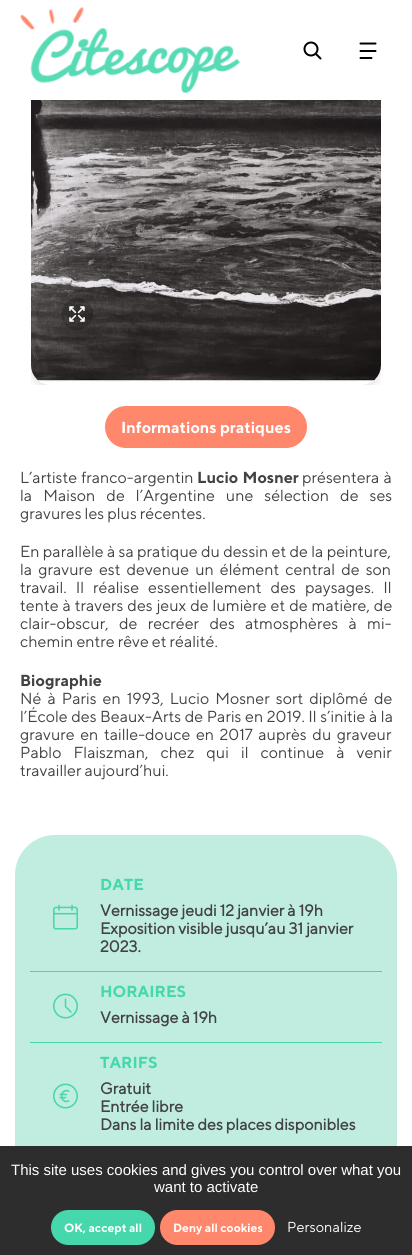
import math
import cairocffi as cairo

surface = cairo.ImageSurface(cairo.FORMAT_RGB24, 412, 1255)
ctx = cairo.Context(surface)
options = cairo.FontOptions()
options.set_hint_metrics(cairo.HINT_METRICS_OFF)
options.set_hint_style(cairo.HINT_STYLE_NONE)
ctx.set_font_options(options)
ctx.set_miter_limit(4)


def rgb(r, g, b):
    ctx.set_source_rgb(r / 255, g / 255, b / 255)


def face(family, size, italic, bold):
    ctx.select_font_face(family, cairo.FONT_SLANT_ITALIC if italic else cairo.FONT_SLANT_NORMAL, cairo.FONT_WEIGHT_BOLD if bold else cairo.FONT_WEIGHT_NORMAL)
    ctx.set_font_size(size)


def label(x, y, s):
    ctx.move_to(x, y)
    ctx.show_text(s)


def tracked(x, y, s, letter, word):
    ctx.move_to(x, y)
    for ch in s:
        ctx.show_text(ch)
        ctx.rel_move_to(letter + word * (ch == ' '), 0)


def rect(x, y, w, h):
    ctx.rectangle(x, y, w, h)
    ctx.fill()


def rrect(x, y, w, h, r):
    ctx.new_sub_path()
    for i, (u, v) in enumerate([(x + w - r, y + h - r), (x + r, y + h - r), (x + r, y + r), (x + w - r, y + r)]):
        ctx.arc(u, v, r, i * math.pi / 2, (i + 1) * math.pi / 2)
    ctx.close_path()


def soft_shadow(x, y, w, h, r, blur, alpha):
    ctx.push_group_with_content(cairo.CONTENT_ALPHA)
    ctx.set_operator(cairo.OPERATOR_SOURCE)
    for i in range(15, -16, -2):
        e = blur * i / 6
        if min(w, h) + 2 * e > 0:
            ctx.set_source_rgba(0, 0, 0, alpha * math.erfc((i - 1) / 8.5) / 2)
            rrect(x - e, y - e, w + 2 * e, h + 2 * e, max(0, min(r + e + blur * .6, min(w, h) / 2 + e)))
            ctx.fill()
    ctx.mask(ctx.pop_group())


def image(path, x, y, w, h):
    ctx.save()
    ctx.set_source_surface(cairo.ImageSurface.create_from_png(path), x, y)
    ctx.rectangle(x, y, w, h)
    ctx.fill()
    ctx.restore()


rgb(255, 255, 255)
ctx.paint()
ctx.save()
ctx.rectangle(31, 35, 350, 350)
ctx.clip()
rgb(0, 0, 0)
soft_shadow(30, 38, 352, 352, 21, 4, 0.1)
ctx.restore()
rgb(255, 255, 255)
rect(31, 35, 350, 65)
image('image0.png', 20, 7, 220, 86)
ctx.arc(311, 49, 6.5, 0, 2 * math.pi)
rgb(0, 0, 0)
ctx.stroke()
ctx.new_path()
ctx.move_to(316, 54)
ctx.line_to(320.5, 58.5)
ctx.move_to(360.5, 43.5)
ctx.line_to(375.5, 43.5)
ctx.move_to(360.5, 51)
ctx.line_to(375.5, 51)
ctx.move_to(360.5, 58)
ctx.line_to(371.5, 58)
ctx.set_line_cap(cairo.LINE_CAP_ROUND)
ctx.stroke()
image('image1.png', 31, 100, 350, 285)
ctx.set_source_rgba(0, 0, 0, 0.2)
ctx.arc(77, 314, 16, 0, 2 * math.pi)
ctx.fill()
image('image2.png', 69, 306, 16, 16)
rgb(255, 135, 107)
rrect(106, 407, 200, 40, 20)
ctx.fill_preserve()
ctx.set_line_cap(cairo.LINE_CAP_BUTT)
ctx.stroke()
face('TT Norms', 16, 0, 1)
rgb(255, 255, 255)
label(121, 433, 'Informations pratiques')
face('TT Norms', 16, 0, 0)
rgb(66, 66, 66)
tracked(20, 483, 'L’artiste franco-argentin', 0, 1)
face('TT Norms', 16, 0, 1)
tracked(197, 483, 'Lucio Mosner', 0, 1)
face('TT Norms', 16, 0, 0)
tracked(302, 483, 'présentera à', 0, 1)
tracked(20, 501, 'la Maison de l’Argentine une sélection de ses', 0, 8)
label(20, 519, 'gravures les plus récentes.')
tracked(20, 557, 'En parallèle à sa pratique du dessin et de la peinture,', 0, 0.25)
tracked(20, 575, 'la gravure est devenue un élément central de son', 0, 3)
tracked(20, 593, 'travail. Il réalise essentiellement des paysages. Il', 0, 6)
tracked(20, 611, 'tente à travers des jeux de lumière et de matière, de', 0, 0.9)
tracked(20, 629, 'clair-obscur, de recréer des atmosphères à mi-', 0, 7.25)
label(20, 647, 'chemin entre rêve et réalité.')
face('TT Norms', 16, 0, 1)
label(20, 686, 'Biographie')
face('TT Norms', 16, 0, 0)
tracked(20, 704, 'Né à Paris en 1993, Lucio Mosner sort diplômé de', 0, 3)
tracked(20, 722, 'l’École des Beaux-Arts de Paris en 2019. Il s’initie à la', 0, 0.5)
tracked(20, 740, 'gravure en taille-douce en 2017 auprès du graveur', 0, 2.5)
tracked(20, 758, 'Pablo Flaiszman, chez qui il continue à venir', 0, 9)
label(20, 776, 'travailler aujourd’hui.')
rgb(192, 237, 224)
rrect(15, 835, 382, 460, 40)
ctx.fill()
rgb(71, 215, 172)
rect(30, 971, 352, 1)
image('image3.png', 53, 904, 25, 26)
face('TT Norms', 16, 0, 1)
label(100, 890, 'DATE')
face('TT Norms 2', 16, 0, 1)
rgb(66, 66, 66)
label(100, 916, 'Vernissage jeudi 12 janvier à 19h')
label(100, 934, 'Exposition visible jusqu’au 31 janvier')
label(100, 952, '2023.')
rgb(71, 215, 172)
rect(30, 1042, 352, 1)
image('image4.png', 53, 993, 25, 26)
face('TT Norms', 16, 0, 1)
label(100, 997, 'HORAIRES')
face('TT Norms 2', 16, 0, 1)
rgb(66, 66, 66)
label(100, 1023, 'Vernissage à 19h')
image('image5.png', 53, 1083, 25, 26)
face('TT Norms', 16, 0, 1)
rgb(71, 215, 172)
label(100, 1068, 'TARIFS')
face('TT Norms 2', 16, 0, 1)
rgb(66, 66, 66)
label(100, 1094, 'Gratuit')
label(100, 1112, 'Entrée libre')
label(100, 1130, 'Dans la limite des places disponibles')
rgb(45, 45, 45)
rect(0, 1146, 412, 109)
face('Liberation Sans', 15, 0, 0)
rgb(255, 255, 255)
label(11, 1175, 'This site uses cookies and gives you control over what you')
label(154, 1192, 'want to activate')
rgb(71, 215, 172)
rrect(52.5, 1211.5, 101, 32, 16)
ctx.fill_preserve()
ctx.set_line_width(3)
ctx.stroke()
face('TT Norms', 12, 0, 1)
rgb(255, 255, 255)
label(64, 1232, 'OK, accept all')
rgb(255, 135, 107)
rrect(161.5, 1211.5, 112, 32, 16)
ctx.fill_preserve()
ctx.stroke()
rgb(255, 255, 255)
label(173, 1232, 'Deny all cookies')
face('TT Norms', 14.5, 0, 0)
label(287, 1232, 'Personalize')
surface.write_to_png('render.png')
